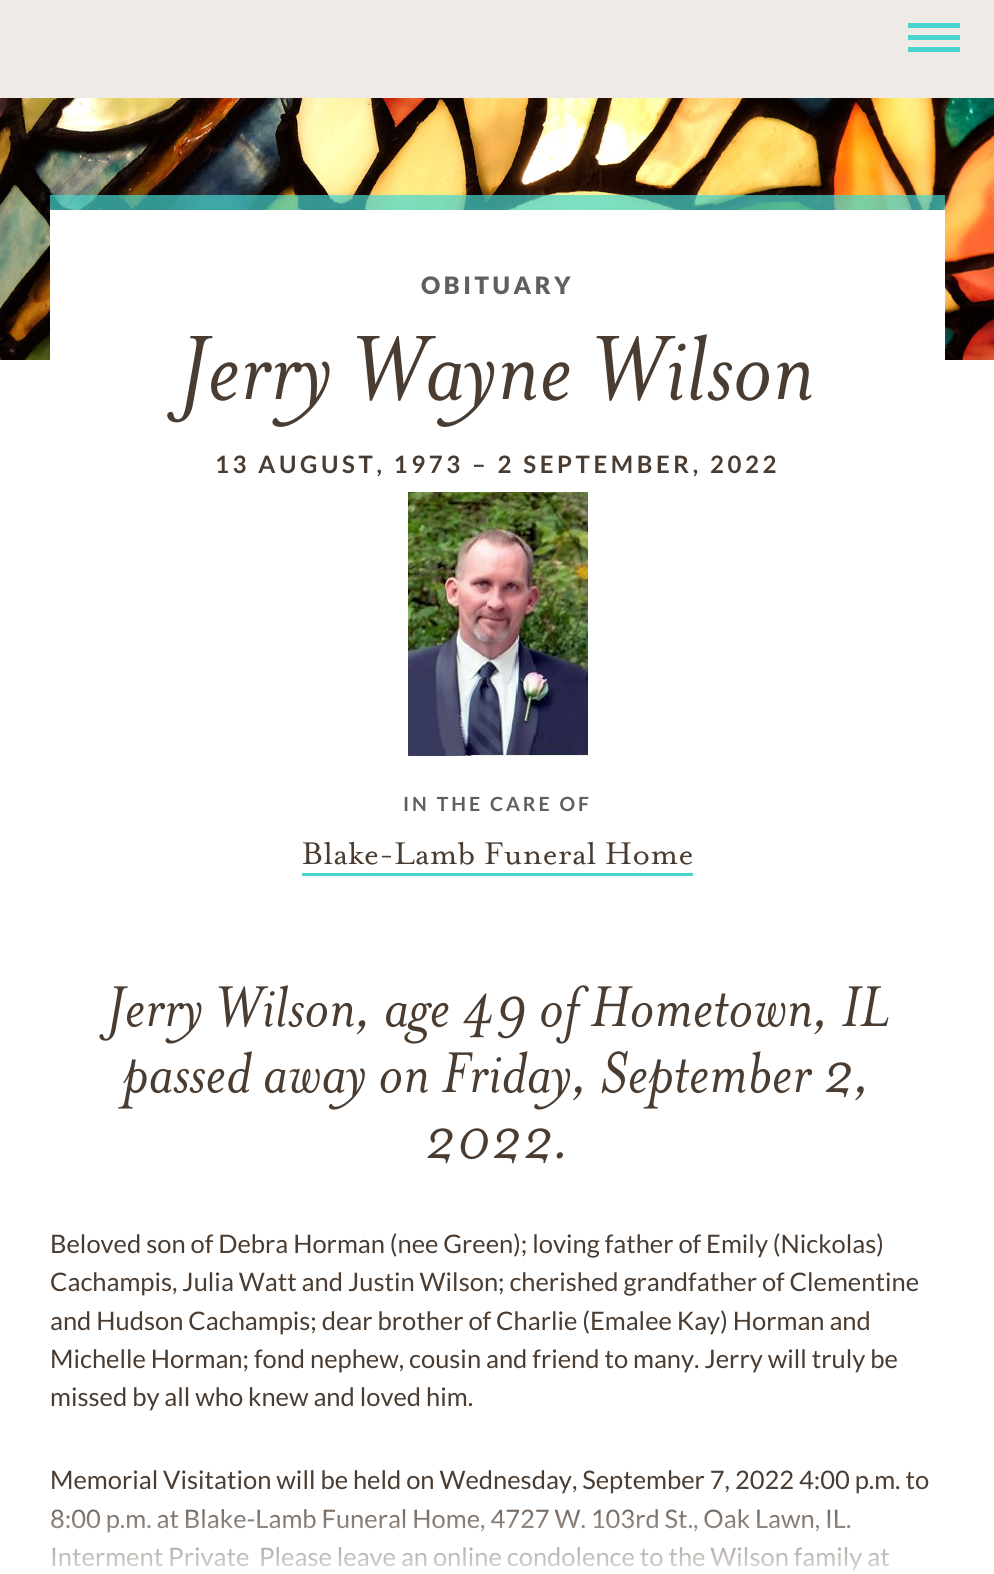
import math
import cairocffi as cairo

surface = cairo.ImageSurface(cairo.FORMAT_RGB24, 994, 1574)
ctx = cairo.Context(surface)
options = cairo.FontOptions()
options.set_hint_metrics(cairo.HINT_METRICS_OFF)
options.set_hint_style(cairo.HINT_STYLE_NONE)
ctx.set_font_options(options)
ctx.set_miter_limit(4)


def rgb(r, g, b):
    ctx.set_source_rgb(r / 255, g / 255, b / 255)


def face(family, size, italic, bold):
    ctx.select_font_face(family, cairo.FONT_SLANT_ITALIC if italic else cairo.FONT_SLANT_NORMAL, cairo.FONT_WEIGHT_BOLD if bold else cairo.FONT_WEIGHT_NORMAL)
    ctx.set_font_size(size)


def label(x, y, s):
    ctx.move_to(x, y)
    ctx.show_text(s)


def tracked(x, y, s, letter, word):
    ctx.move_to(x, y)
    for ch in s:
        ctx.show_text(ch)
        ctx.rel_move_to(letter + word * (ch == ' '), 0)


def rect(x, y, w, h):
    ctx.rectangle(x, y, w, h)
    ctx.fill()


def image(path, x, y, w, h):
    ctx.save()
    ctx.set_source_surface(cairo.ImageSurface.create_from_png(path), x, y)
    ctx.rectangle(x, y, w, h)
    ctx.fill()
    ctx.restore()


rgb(255, 255, 255)
ctx.paint()
rgb(238, 235, 230)
rect(0, 0, 994, 98)
rgb(71, 213, 205)
rect(908, 23, 52, 5)
rect(908, 35, 52, 5)
rect(908, 47, 52, 5)
image('image0.png', 0, 98, 994, 262)
rgb(255, 255, 255)
rect(50, 210, 895, 150)
ctx.set_source_rgba(0.278, 0.835, 0.804, 0.7)
rect(50, 195, 895, 15)
face('Lato Black', 24, 0, 0)
rgb(96, 95, 94)
tracked(421, 294, 'OBITUARY', 3.6, 0)
image('image1.png', 167, 334, 645, 93)
face('Lato', 24, 0, 1)
rgb(74, 60, 49)
tracked(215, 473, '13 AUGUST, 1973 – 2 SEPTEMBER, 2022', 3.6, 0)
image('image2.png', 408, 492, 180, 264)
face('Lato', 19.5, 0, 1)
rgb(96, 95, 94)
tracked(403, 811, 'IN THE CARE OF', 3, 0)
image('image3.png', 302, 841, 391, 24)
rgb(71, 213, 205)
rect(302, 873, 391, 3)
image('image4.png', 99, 985, 790, 59)
image('image5.png', 118, 1050, 746, 60)
image('image6.png', 427, 1128, 136, 36)
face('Lato', 25.5, 0, 0)
rgb(74, 60, 49)
label(50, 1253, 'Beloved son of Debra Horman (nee Green); loving father of Emily (Nickolas)')
label(50, 1291, 'Cachampis, Julia Watt and Justin Wilson; cherished grandfather of Clementine')
label(50, 1330, 'and Hudson Cachampis; dear brother of Charlie (Emalee Kay) Horman and')
label(50, 1368, 'Michelle Horman; fond nephew, cousin and friend to many. Jerry will truly be')
label(50, 1406, 'missed by all who knew and loved him.')
label(50, 1489, 'Memorial Visitation will be held on Wednesday, September 7, 2022 4:00 p.m. to')
label(50, 1528, '8:00 p.m. at Blake-Lamb Funeral Home, 4727 W. 103rd St., Oak Lawn, IL.')
label(50, 1566, 'Interment Private')
label(259, 1566, 'Please leave an online condolence to the Wilson family at')
gradient = cairo.LinearGradient(497, 1485, 497, 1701)
gradient.add_color_stop_rgba(0, 1, 1, 1, 0)
gradient.add_color_stop_rgba(0.5, 1, 1, 1, 1)
gradient.add_color_stop_rgba(1, 1, 1, 1, 1)
ctx.set_source(gradient)
rect(51, 1487, 875, 84)
surface.write_to_png('render.png')
